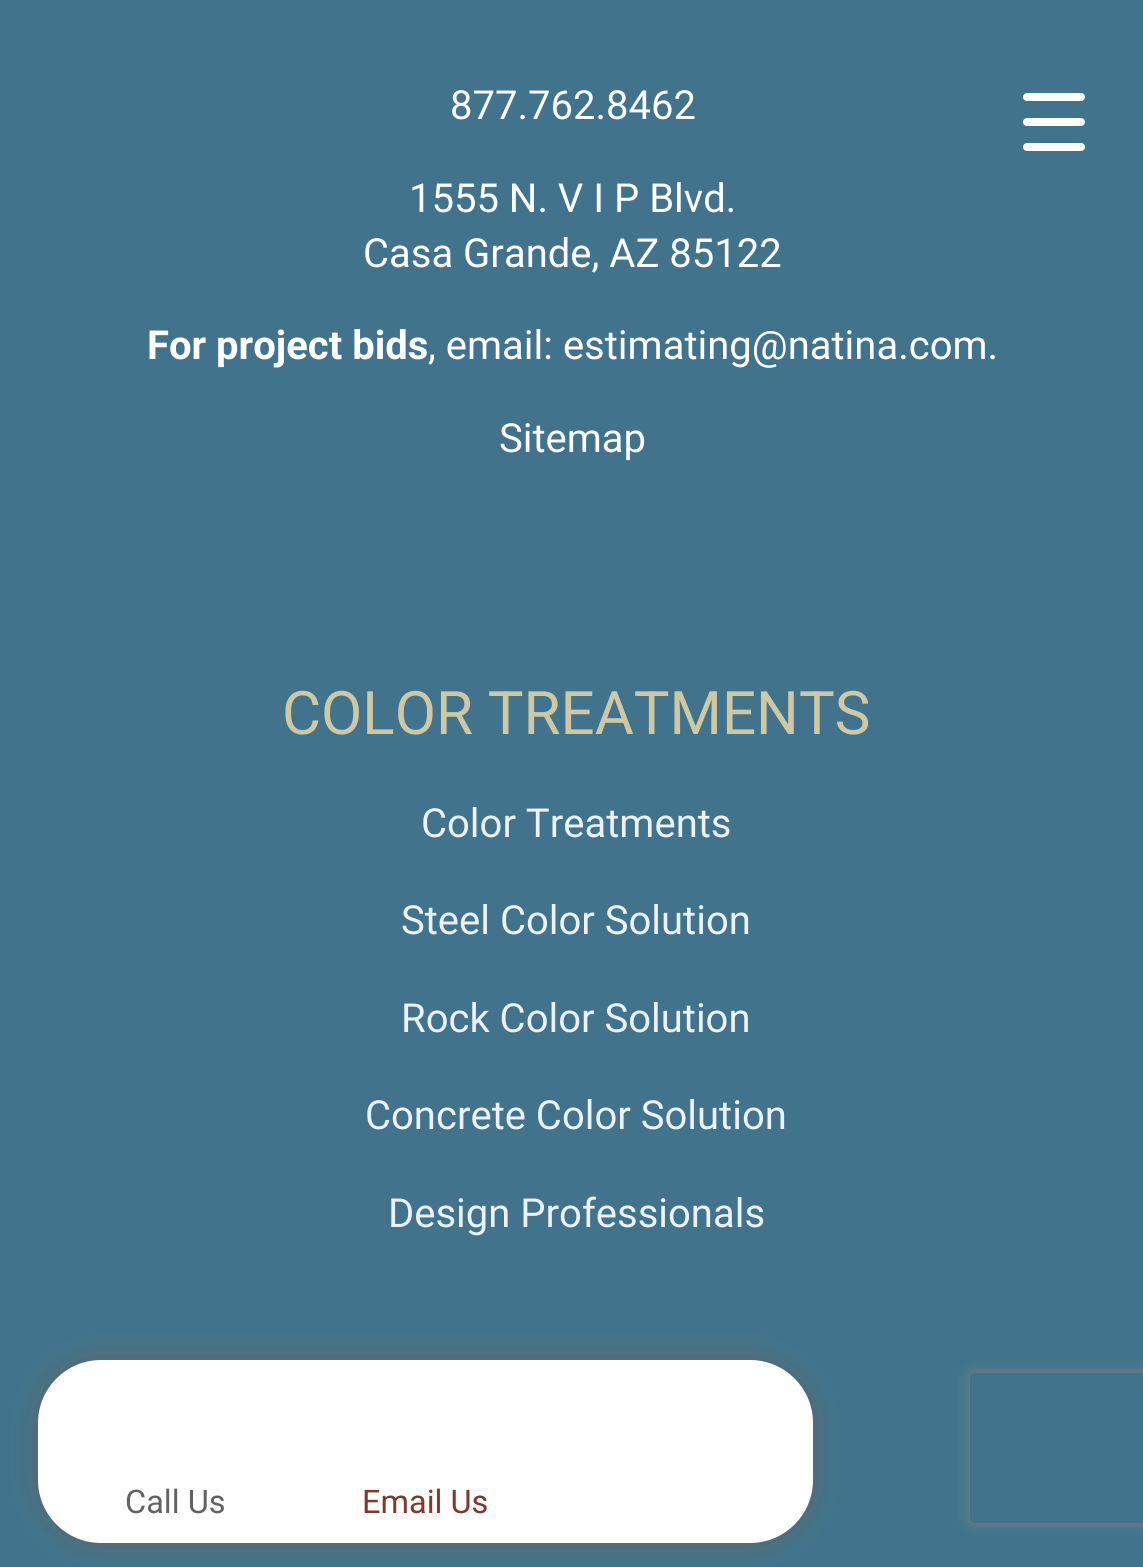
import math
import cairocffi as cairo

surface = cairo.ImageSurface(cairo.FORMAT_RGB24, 1143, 1567)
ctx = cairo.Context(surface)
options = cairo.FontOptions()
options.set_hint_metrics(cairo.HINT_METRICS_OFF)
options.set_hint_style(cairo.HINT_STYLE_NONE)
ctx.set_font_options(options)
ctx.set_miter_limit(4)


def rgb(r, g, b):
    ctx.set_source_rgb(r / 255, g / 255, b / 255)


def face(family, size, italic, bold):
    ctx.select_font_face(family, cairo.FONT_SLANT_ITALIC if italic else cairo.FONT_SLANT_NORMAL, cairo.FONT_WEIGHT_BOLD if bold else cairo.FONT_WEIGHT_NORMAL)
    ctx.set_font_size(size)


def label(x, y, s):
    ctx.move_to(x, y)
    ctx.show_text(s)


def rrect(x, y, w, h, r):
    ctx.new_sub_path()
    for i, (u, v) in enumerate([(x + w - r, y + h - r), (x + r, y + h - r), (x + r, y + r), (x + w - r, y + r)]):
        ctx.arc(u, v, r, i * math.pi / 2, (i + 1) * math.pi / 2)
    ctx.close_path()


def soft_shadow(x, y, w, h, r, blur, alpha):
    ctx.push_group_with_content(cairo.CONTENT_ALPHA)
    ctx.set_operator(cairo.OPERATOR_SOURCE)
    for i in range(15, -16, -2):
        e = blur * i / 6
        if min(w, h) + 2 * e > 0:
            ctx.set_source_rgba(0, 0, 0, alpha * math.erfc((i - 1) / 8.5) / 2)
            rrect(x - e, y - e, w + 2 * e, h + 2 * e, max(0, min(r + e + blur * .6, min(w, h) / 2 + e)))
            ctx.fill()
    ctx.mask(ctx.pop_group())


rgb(65, 116, 140)
ctx.paint()
face('Roboto', 40, 0, 0)
rgb(255, 255, 255)
label(450, 119, '877.762.8462')
label(409, 212, '1555 N. V I P Blvd.')
label(363, 267, 'Casa Grande, AZ 85122')
face('Roboto', 40, 0, 1)
label(147, 359, 'For project bids')
face('Roboto', 40, 0, 0)
label(428, 359, ', email: estimating@natina.com.')
label(499, 452, 'Sitemap')
face('Roboto', 60, 0, 0)
rgb(207, 200, 164)
label(282, 734, 'COLOR TREATMENTS')
face('Roboto', 40, 0, 0)
rgb(236, 241, 244)
label(421, 837, 'Color Treatments')
label(401, 934, 'Steel Color Solution')
label(401, 1032, 'Rock Color Solution')
label(365, 1129, 'Concrete Color Solution')
label(388, 1227, 'Design Professionals')
rgb(255, 255, 255)
rrect(1023, 118, 62, 8, 4)
ctx.fill()
rrect(1023, 93, 62, 8, 4)
ctx.fill()
rrect(1023, 143, 62, 8, 4)
ctx.fill()
rgb(98, 98, 98)
soft_shadow(38, 1360, 775, 183, 63, 12.5, 1)
rgb(255, 255, 255)
rrect(38, 1360, 775, 183, 63)
ctx.fill()
face('Roboto', 32.5, 0, 0)
rgb(98, 98, 98)
label(125, 1513, 'Call Us')
rgb(124, 58, 44)
label(362, 1513, 'Email Us')
ctx.save()
ctx.set_fill_rule(cairo.FILL_RULE_EVEN_ODD)
ctx.new_path()
ctx.move_to(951, 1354)
ctx.line_to(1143, 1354)
ctx.line_to(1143, 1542)
ctx.line_to(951, 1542)
ctx.close_path()
ctx.move_to(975, 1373)
ctx.line_to(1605, 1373)
ctx.curve_to(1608, 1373, 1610, 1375, 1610, 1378)
ctx.line_to(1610, 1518)
ctx.curve_to(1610, 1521, 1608, 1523, 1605, 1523)
ctx.line_to(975, 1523)
ctx.curve_to(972, 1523, 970, 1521, 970, 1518)
ctx.line_to(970, 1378)
ctx.curve_to(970, 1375, 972, 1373, 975, 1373)
ctx.close_path()
ctx.clip()
rgb(128, 128, 128)
soft_shadow(970, 1373, 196, 150, 5, 6, 1)
ctx.restore()
surface.write_to_png('render.png')
